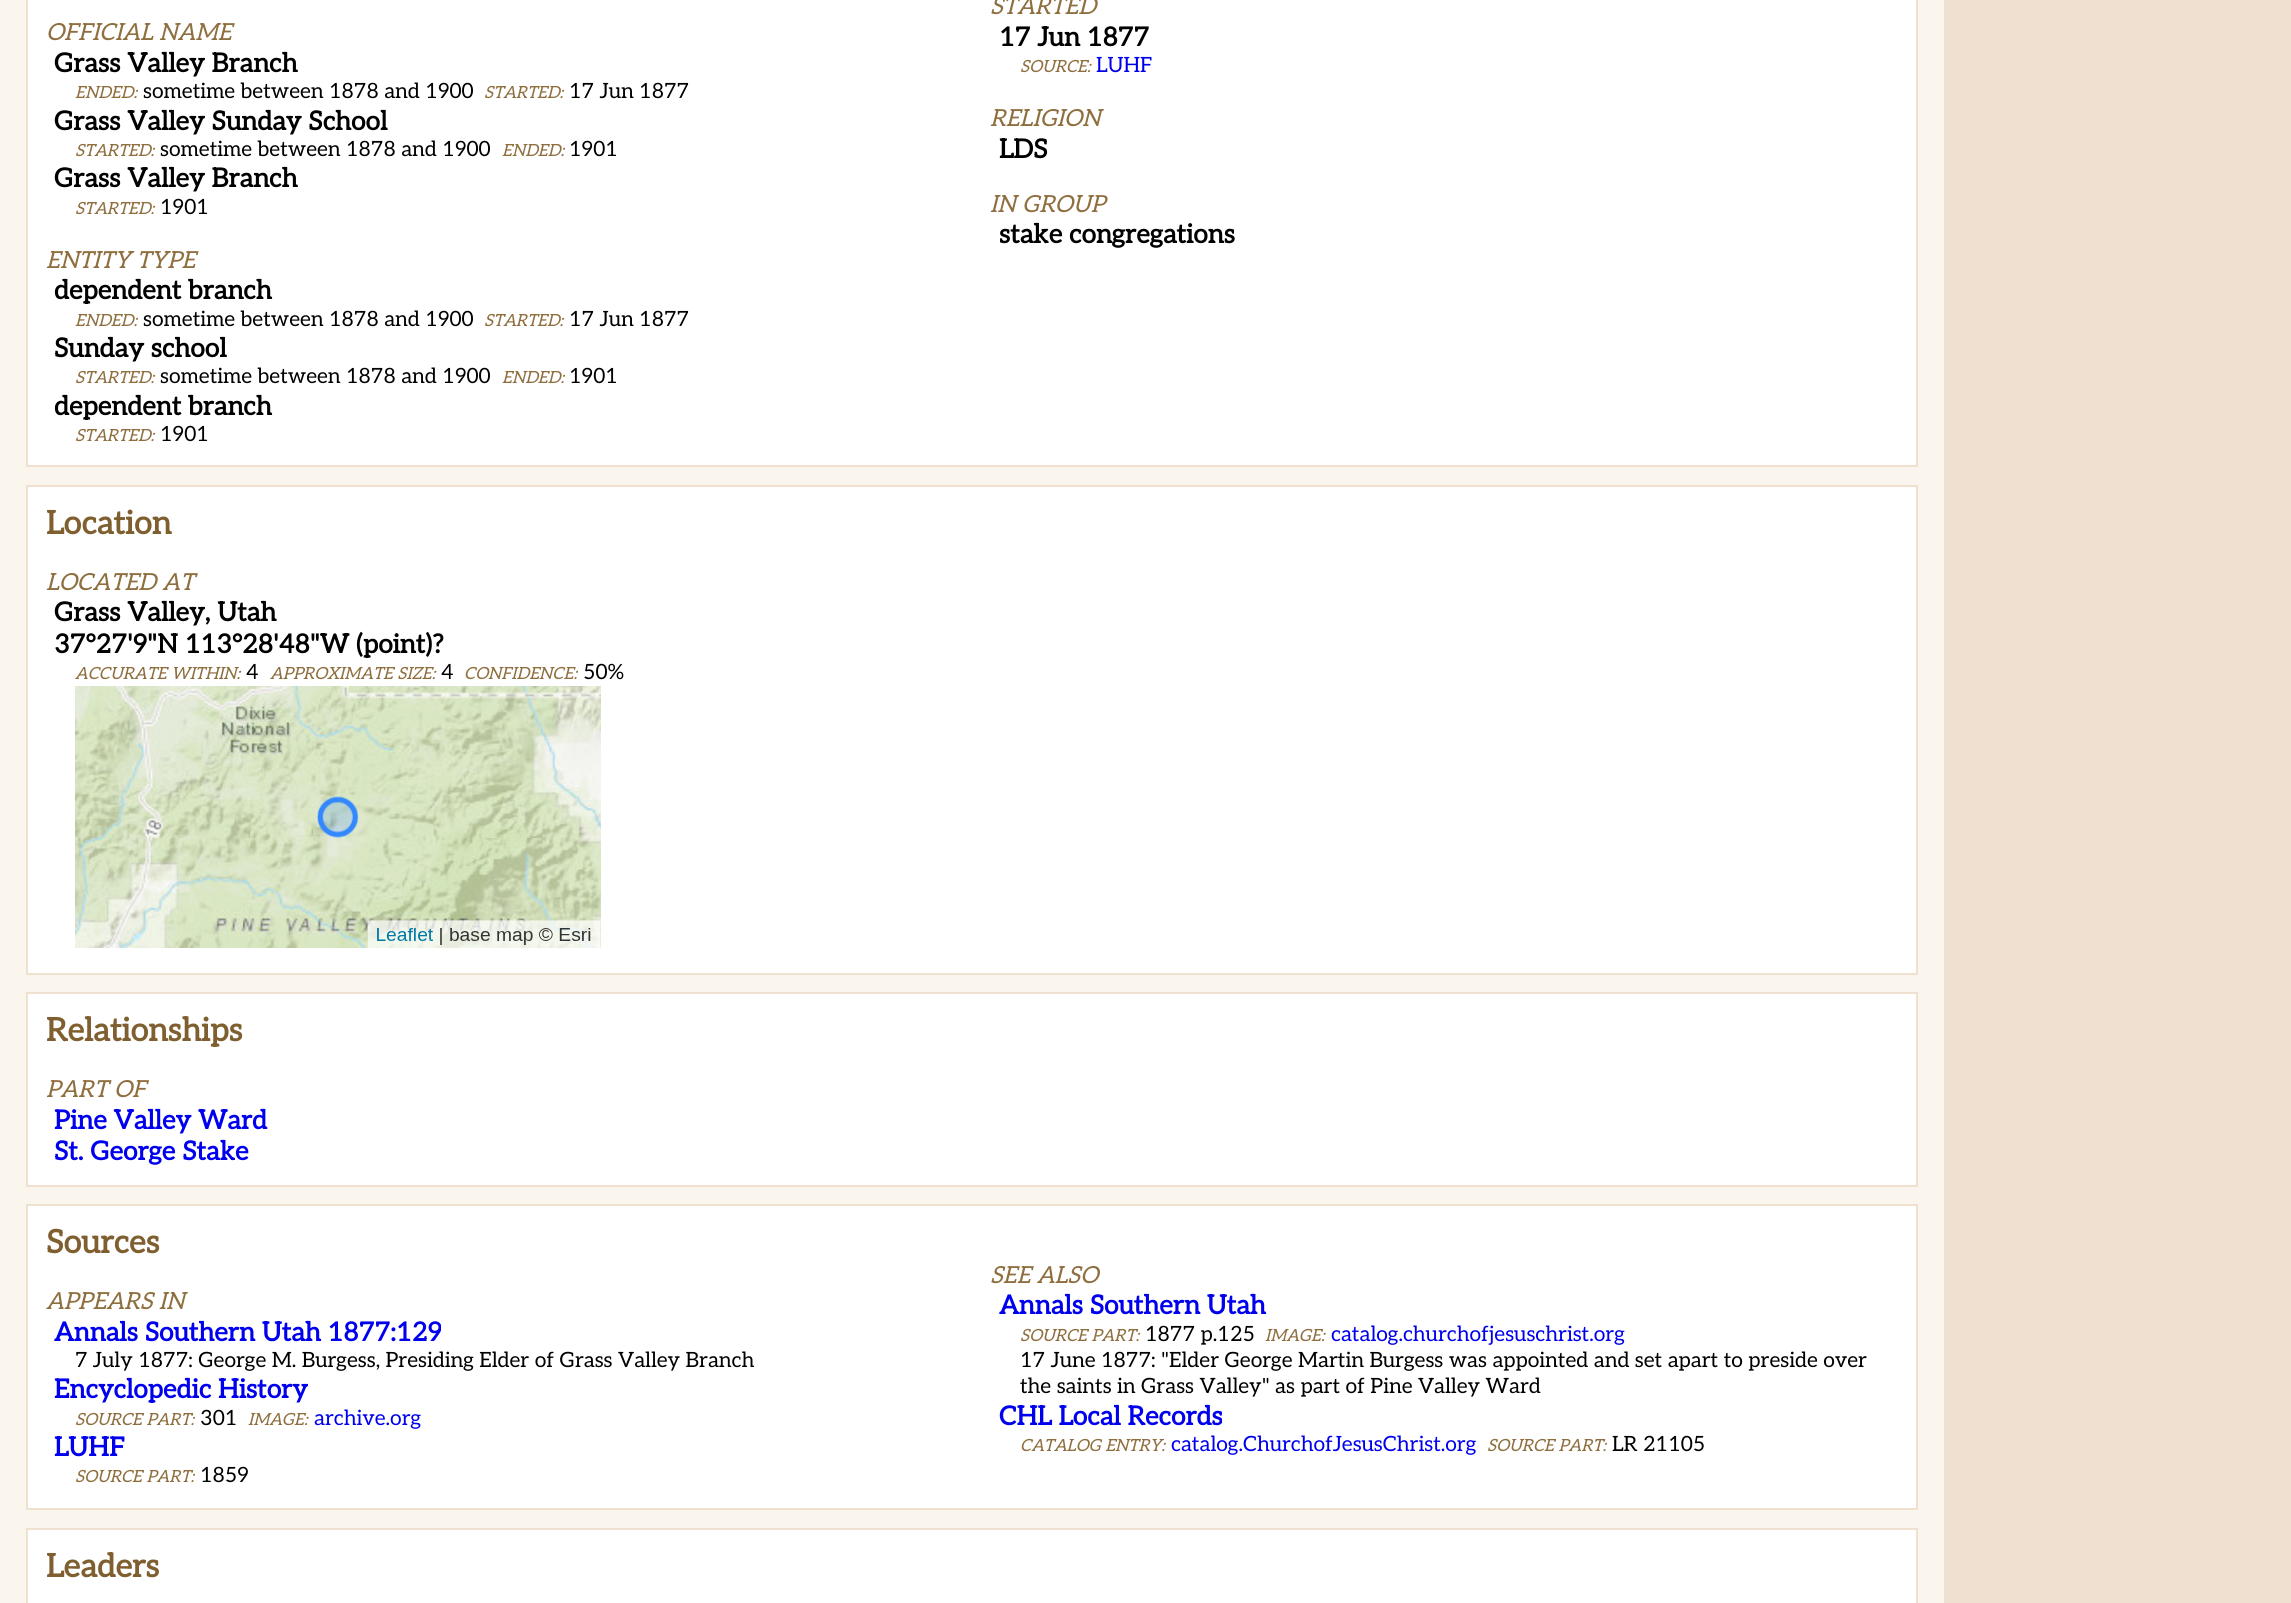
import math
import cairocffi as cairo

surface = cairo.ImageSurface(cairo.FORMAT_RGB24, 2291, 1603)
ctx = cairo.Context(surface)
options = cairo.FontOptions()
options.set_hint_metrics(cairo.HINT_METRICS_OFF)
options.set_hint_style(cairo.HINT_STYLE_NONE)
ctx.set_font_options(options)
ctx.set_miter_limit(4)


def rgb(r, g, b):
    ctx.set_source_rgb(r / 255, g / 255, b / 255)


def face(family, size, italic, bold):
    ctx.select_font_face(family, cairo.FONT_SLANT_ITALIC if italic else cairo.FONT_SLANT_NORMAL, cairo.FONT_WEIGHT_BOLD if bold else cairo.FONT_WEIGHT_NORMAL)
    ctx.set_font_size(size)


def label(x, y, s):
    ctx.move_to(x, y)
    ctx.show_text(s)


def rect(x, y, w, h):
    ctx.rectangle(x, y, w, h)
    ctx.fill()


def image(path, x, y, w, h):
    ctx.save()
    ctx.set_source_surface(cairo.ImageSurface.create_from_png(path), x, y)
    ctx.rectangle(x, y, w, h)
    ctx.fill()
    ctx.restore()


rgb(250, 245, 237)
ctx.paint()
rgb(255, 255, 255)
ctx.rectangle(27, -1, 1890, 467)
ctx.fill_preserve()
rgb(240, 224, 208)
ctx.stroke()
face('Aleo', 23.5, 1, 0)
rgb(143, 111, 63)
label(46, 40, 'OFFICIAL NAME')
face('Aleo', 26.25, 0, 1)
rgb(0, 0, 0)
label(54, 72, 'Grass Valley Branch')
face('Aleo', 16.75, 1, 0)
rgb(143, 111, 63)
label(75, 98, 'ENDED:')
face('Aleo', 21, 0, 0)
rgb(0, 0, 0)
label(143, 98, 'sometime between 1878 and 1900')
face('Aleo', 16.75, 1, 0)
rgb(143, 111, 63)
label(484, 98, 'STARTED:')
face('Aleo', 21, 0, 0)
rgb(0, 0, 0)
label(569, 98, '17 Jun 1877')
face('Aleo', 26.25, 0, 1)
label(54, 130, 'Grass Valley Sunday School')
face('Aleo', 16.75, 1, 0)
rgb(143, 111, 63)
label(75, 156, 'STARTED:')
face('Aleo', 21, 0, 0)
rgb(0, 0, 0)
label(160, 156, 'sometime between 1878 and 1900')
face('Aleo', 16.75, 1, 0)
rgb(143, 111, 63)
label(502, 156, 'ENDED:')
face('Aleo', 21, 0, 0)
rgb(0, 0, 0)
label(569, 156, '1901')
face('Aleo', 26.25, 0, 1)
label(54, 187, 'Grass Valley Branch')
face('Aleo', 16.75, 1, 0)
rgb(143, 111, 63)
label(75, 214, 'STARTED:')
face('Aleo', 21, 0, 0)
rgb(0, 0, 0)
label(160, 214, '1901')
face('Aleo', 23.5, 1, 0)
rgb(143, 111, 63)
label(990, 14, 'STARTED')
face('Aleo', 26.25, 0, 1)
rgb(0, 0, 0)
label(999, 46, '17 Jun 1877')
face('Aleo', 16.75, 1, 0)
rgb(143, 111, 63)
label(1020, 72, 'SOURCE:')
face('Aleo', 21, 0, 0)
rgb(0, 0, 238)
label(1096, 72, 'LUHF')
face('Aleo', 23.5, 1, 0)
rgb(143, 111, 63)
label(990, 126, 'RELIGION')
face('Aleo', 26.25, 0, 1)
rgb(0, 0, 0)
label(999, 158, 'LDS')
face('Aleo', 23.5, 1, 0)
rgb(143, 111, 63)
label(990, 212, 'IN GROUP')
face('Aleo', 26.25, 0, 1)
rgb(0, 0, 0)
label(999, 243, 'stake congregations')
face('Aleo', 23.5, 1, 0)
rgb(143, 111, 63)
label(46, 268, 'ENTITY TYPE')
face('Aleo', 26.25, 0, 1)
rgb(0, 0, 0)
label(54, 299, 'dependent branch')
face('Aleo', 16.75, 1, 0)
rgb(143, 111, 63)
label(75, 326, 'ENDED:')
face('Aleo', 21, 0, 0)
rgb(0, 0, 0)
label(143, 326, 'sometime between 1878 and 1900')
face('Aleo', 16.75, 1, 0)
rgb(143, 111, 63)
label(484, 326, 'STARTED:')
face('Aleo', 21, 0, 0)
rgb(0, 0, 0)
label(569, 326, '17 Jun 1877')
face('Aleo', 26.25, 0, 1)
label(54, 357, 'Sunday school')
face('Aleo', 16.75, 1, 0)
rgb(143, 111, 63)
label(75, 383, 'STARTED:')
face('Aleo', 21, 0, 0)
rgb(0, 0, 0)
label(160, 383, 'sometime between 1878 and 1900')
face('Aleo', 16.75, 1, 0)
rgb(143, 111, 63)
label(502, 383, 'ENDED:')
face('Aleo', 21, 0, 0)
rgb(0, 0, 0)
label(569, 383, '1901')
face('Aleo', 26.25, 0, 1)
label(54, 415, 'dependent branch')
face('Aleo', 16.75, 1, 0)
rgb(143, 111, 63)
label(75, 441, 'STARTED:')
face('Aleo', 21, 0, 0)
rgb(0, 0, 0)
label(160, 441, '1901')
rgb(255, 255, 255)
ctx.rectangle(27, 486, 1890, 488)
ctx.fill_preserve()
rgb(240, 224, 208)
ctx.stroke()
face('Aleo', 32.25, 0, 1)
rgb(127, 95, 47)
label(46, 534, 'Location')
face('Aleo', 23.5, 1, 0)
rgb(143, 111, 63)
label(46, 590, 'LOCATED AT')
face('Aleo', 26.25, 0, 1)
rgb(0, 0, 0)
label(54, 621, 'Grass Valley, Utah')
label(54, 653, '37°27\'9"N 113°28\'48"W (point)?')
face('Aleo', 16.75, 1, 0)
rgb(143, 111, 63)
label(75, 679, 'ACCURATE WITHIN:')
face('Aleo', 21, 0, 0)
rgb(0, 0, 0)
label(246, 679, '4')
face('Aleo', 16.75, 1, 0)
rgb(143, 111, 63)
label(270, 679, 'APPROXIMATE SIZE:')
face('Aleo', 21, 0, 0)
rgb(0, 0, 0)
label(441, 679, '4')
face('Aleo', 16.75, 1, 0)
rgb(143, 111, 63)
label(464, 679, 'CONFIDENCE:')
face('Aleo', 21, 0, 0)
rgb(0, 0, 0)
label(583, 679, '50%')
image('image0.png', 75, 686, 526, 262)
rgb(255, 255, 255)
ctx.rectangle(27, 993, 1890, 193)
ctx.fill_preserve()
rgb(240, 224, 208)
ctx.stroke()
face('Aleo', 32.25, 0, 1)
rgb(127, 95, 47)
label(46, 1041, 'Relationships')
face('Aleo', 23.5, 1, 0)
rgb(143, 111, 63)
label(46, 1097, 'PART OF')
face('Aleo', 26.25, 0, 1)
rgb(0, 0, 238)
label(54, 1129, 'Pine Valley Ward')
label(54, 1160, 'St. George Stake')
rgb(255, 255, 255)
ctx.rectangle(27, 1205, 1890, 304)
ctx.fill_preserve()
rgb(240, 224, 208)
ctx.stroke()
face('Aleo', 32.25, 0, 1)
rgb(127, 95, 47)
label(46, 1253, 'Sources')
face('Aleo', 23.5, 1, 0)
rgb(143, 111, 63)
label(46, 1309, 'APPEARS IN')
face('Aleo', 26.25, 0, 1)
rgb(0, 0, 238)
label(54, 1341, 'Annals Southern Utah 1877:129')
face('Aleo', 21, 0, 0)
rgb(0, 0, 0)
label(75, 1367, '7 July 1877: George M. Burgess, Presiding Elder of Grass Valley Branch')
face('Aleo', 26.25, 0, 1)
rgb(0, 0, 238)
label(54, 1398, 'Encyclopedic History')
face('Aleo', 16.75, 1, 0)
rgb(143, 111, 63)
label(75, 1425, 'SOURCE PART:')
face('Aleo', 21, 0, 0)
rgb(0, 0, 0)
label(200, 1425, '301')
face('Aleo', 16.75, 1, 0)
rgb(143, 111, 63)
label(248, 1425, 'IMAGE:')
face('Aleo', 21, 0, 0)
rgb(0, 0, 238)
label(314, 1425, 'archive.org')
face('Aleo', 26.25, 0, 1)
label(54, 1456, 'LUHF')
face('Aleo', 16.75, 1, 0)
rgb(143, 111, 63)
label(75, 1482, 'SOURCE PART:')
face('Aleo', 21, 0, 0)
rgb(0, 0, 0)
label(200, 1482, '1859')
face('Aleo', 23.5, 1, 0)
rgb(143, 111, 63)
label(990, 1283, 'SEE ALSO')
face('Aleo', 26.25, 0, 1)
rgb(0, 0, 238)
label(999, 1314, 'Annals Southern Utah')
face('Aleo', 16.75, 1, 0)
rgb(143, 111, 63)
label(1020, 1341, 'SOURCE PART:')
face('Aleo', 21, 0, 0)
rgb(0, 0, 0)
label(1145, 1341, '1877 p.125')
face('Aleo', 16.75, 1, 0)
rgb(143, 111, 63)
label(1265, 1341, 'IMAGE:')
face('Aleo', 21, 0, 0)
rgb(0, 0, 238)
label(1331, 1341, 'catalog.churchofjesuschrist.org')
rgb(0, 0, 0)
label(1020, 1367, '17 June 1877: "Elder George Martin Burgess was appointed and set apart to preside over')
label(1020, 1393, 'the saints in Grass Valley" as part of Pine Valley Ward')
face('Aleo', 26.25, 0, 1)
rgb(0, 0, 238)
label(999, 1425, 'CHL Local Records')
face('Aleo', 16.75, 1, 0)
rgb(143, 111, 63)
label(1020, 1451, 'CATALOG ENTRY:')
face('Aleo', 21, 0, 0)
rgb(0, 0, 238)
label(1171, 1451, 'catalog.ChurchofJesusChrist.org')
face('Aleo', 16.75, 1, 0)
rgb(143, 111, 63)
label(1487, 1451, 'SOURCE PART:')
face('Aleo', 21, 0, 0)
rgb(0, 0, 0)
label(1612, 1451, 'LR 21105')
rgb(255, 255, 255)
ctx.rectangle(27, 1529, 1890, 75)
ctx.fill_preserve()
rgb(240, 224, 208)
ctx.stroke()
face('Aleo', 32.25, 0, 1)
rgb(127, 95, 47)
label(46, 1577, 'Leaders')
rgb(240, 224, 208)
rect(1944, 0, 347, 1603)
surface.write_to_png('render.png')
